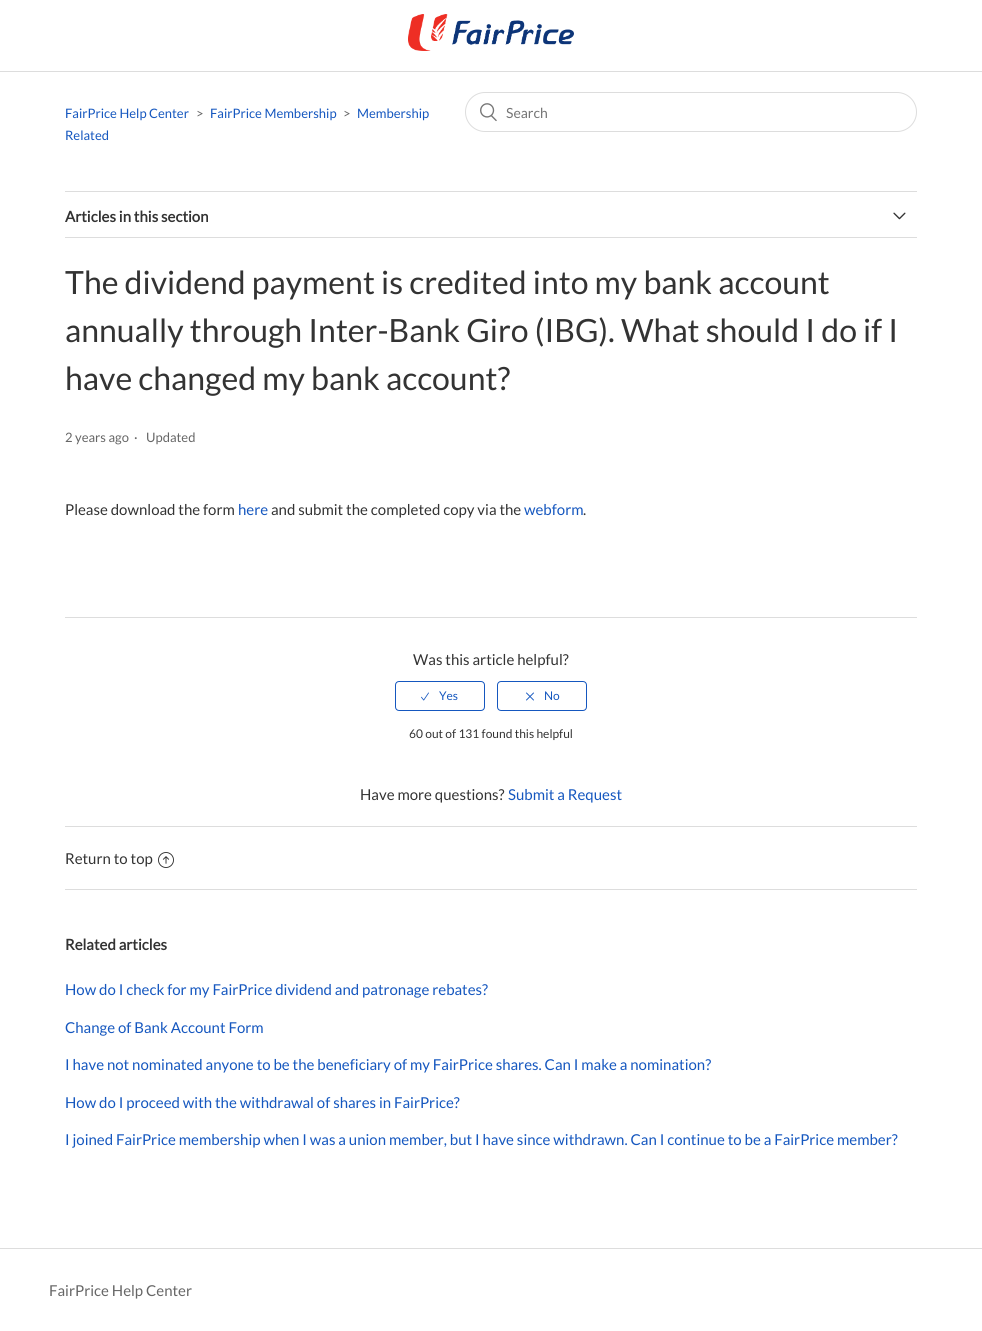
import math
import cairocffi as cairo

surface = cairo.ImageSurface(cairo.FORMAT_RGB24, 982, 1331)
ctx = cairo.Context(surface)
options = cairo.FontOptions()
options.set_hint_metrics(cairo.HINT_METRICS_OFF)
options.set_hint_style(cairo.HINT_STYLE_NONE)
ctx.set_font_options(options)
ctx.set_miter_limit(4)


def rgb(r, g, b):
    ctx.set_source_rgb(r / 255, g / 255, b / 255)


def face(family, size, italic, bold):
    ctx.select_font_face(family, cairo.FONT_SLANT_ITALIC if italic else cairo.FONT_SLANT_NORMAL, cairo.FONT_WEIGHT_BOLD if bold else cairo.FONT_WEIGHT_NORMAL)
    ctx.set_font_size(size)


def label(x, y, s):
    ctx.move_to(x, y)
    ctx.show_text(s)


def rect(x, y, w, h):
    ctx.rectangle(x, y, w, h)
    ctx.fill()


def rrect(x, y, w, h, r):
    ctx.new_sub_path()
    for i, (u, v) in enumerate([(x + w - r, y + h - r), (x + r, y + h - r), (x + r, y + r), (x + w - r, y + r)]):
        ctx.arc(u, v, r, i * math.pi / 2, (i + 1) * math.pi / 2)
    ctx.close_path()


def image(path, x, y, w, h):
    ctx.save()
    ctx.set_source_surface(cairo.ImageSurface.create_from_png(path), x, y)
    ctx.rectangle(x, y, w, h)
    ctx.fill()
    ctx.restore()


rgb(255, 255, 255)
ctx.paint()
image('image0.png', 408, 14, 166, 37)
rgb(221, 221, 221)
rect(0, 71, 982, 1)
face('Lato', 13, 0, 0)
rgb(21, 87, 191)
label(65, 118, 'FairPrice Help Center')
rgb(102, 102, 102)
label(196, 118, '>')
rgb(21, 87, 191)
label(210, 118, 'FairPrice Membership')
rgb(102, 102, 102)
label(343, 118, '>')
rgb(21, 87, 191)
label(357, 118, 'Membership')
label(65, 140, 'Related')
rrect(465.5, 92.5, 451, 39, 19.5)
rgb(221, 221, 221)
ctx.set_line_width(1)
ctx.stroke()
image('image1.png', 480, 103, 17, 19)
face('Lato', 14, 0, 0)
rgb(117, 117, 117)
label(506, 118, 'Search')
rgb(221, 221, 221)
rect(65, 191, 852, 1)
rect(65, 237, 852, 1)
face('Lato', 15, 0, 1)
rgb(51, 51, 51)
label(65, 222, 'Articles in this section')
image('image2.png', 893, 212, 13, 8)
face('Lato', 32, 0, 0)
label(65, 294, 'The dividend payment is credited into my bank account')
label(65, 342, 'annually through Inter-Bank Giro (IBG). What should I do if I')
label(65, 390, 'have changed my bank account?')
face('Lato', 13, 0, 0)
rgb(102, 102, 102)
label(65, 442, '2 years ago')
label(134, 442, '·')
label(146, 442, 'Updated')
face('Lato', 15, 0, 0)
rgb(51, 51, 51)
label(65, 515, 'Please download the form')
rgb(21, 87, 191)
label(238, 515, 'here')
rgb(51, 51, 51)
label(271, 515, 'and submit the completed copy via the')
rgb(21, 87, 191)
label(524, 515, 'webform')
rgb(51, 51, 51)
label(583, 515, '.')
rgb(221, 221, 221)
rect(65, 617, 852, 1)
rgb(51, 51, 51)
label(413, 665, 'Was this article helpful?')
rrect(395.5, 681.5, 89, 29, 3.5)
rgb(21, 87, 191)
ctx.stroke()
image('image3.png', 421, 692, 8, 9)
face('Lato', 12, 0, 0)
label(439, 700, 'Yes')
rrect(497.5, 681.5, 89, 29, 3.5)
ctx.stroke()
image('image4.png', 526, 692, 8, 9)
label(544, 700, 'No')
rgb(51, 51, 51)
label(409, 738, '60 out of 131 found this helpful')
face('Lato', 15, 0, 0)
label(360, 800, 'Have more questions?')
rgb(21, 87, 191)
label(508, 800, 'Submit a Request')
rgb(221, 221, 221)
rect(65, 826, 852, 1)
rgb(51, 51, 51)
label(65, 864, 'Return to top')
image('image5.png', 158, 852, 16, 16)
rgb(221, 221, 221)
rect(65, 889, 852, 1)
face('Lato', 15, 0, 1)
rgb(51, 51, 51)
label(65, 950, 'Related articles')
face('Lato', 15, 0, 0)
rgb(21, 87, 191)
label(65, 995, 'How do I check for my FairPrice dividend and patronage rebates?')
label(65, 1033, 'Change of Bank Account Form')
label(65, 1070, 'I have not nominated anyone to be the beneficiary of my FairPrice shares. Can I make a nomination?')
label(65, 1108, 'How do I proceed with the withdrawal of shares in FairPrice?')
label(65, 1145, 'I joined FairPrice membership when I was a union member, but I have since withdrawn. Can I continue to be a FairPrice member?')
rgb(221, 221, 221)
rect(0, 1248, 982, 1)
rgb(102, 102, 102)
label(49, 1296, 'FairPrice Help Center')
surface.write_to_png('render.png')
